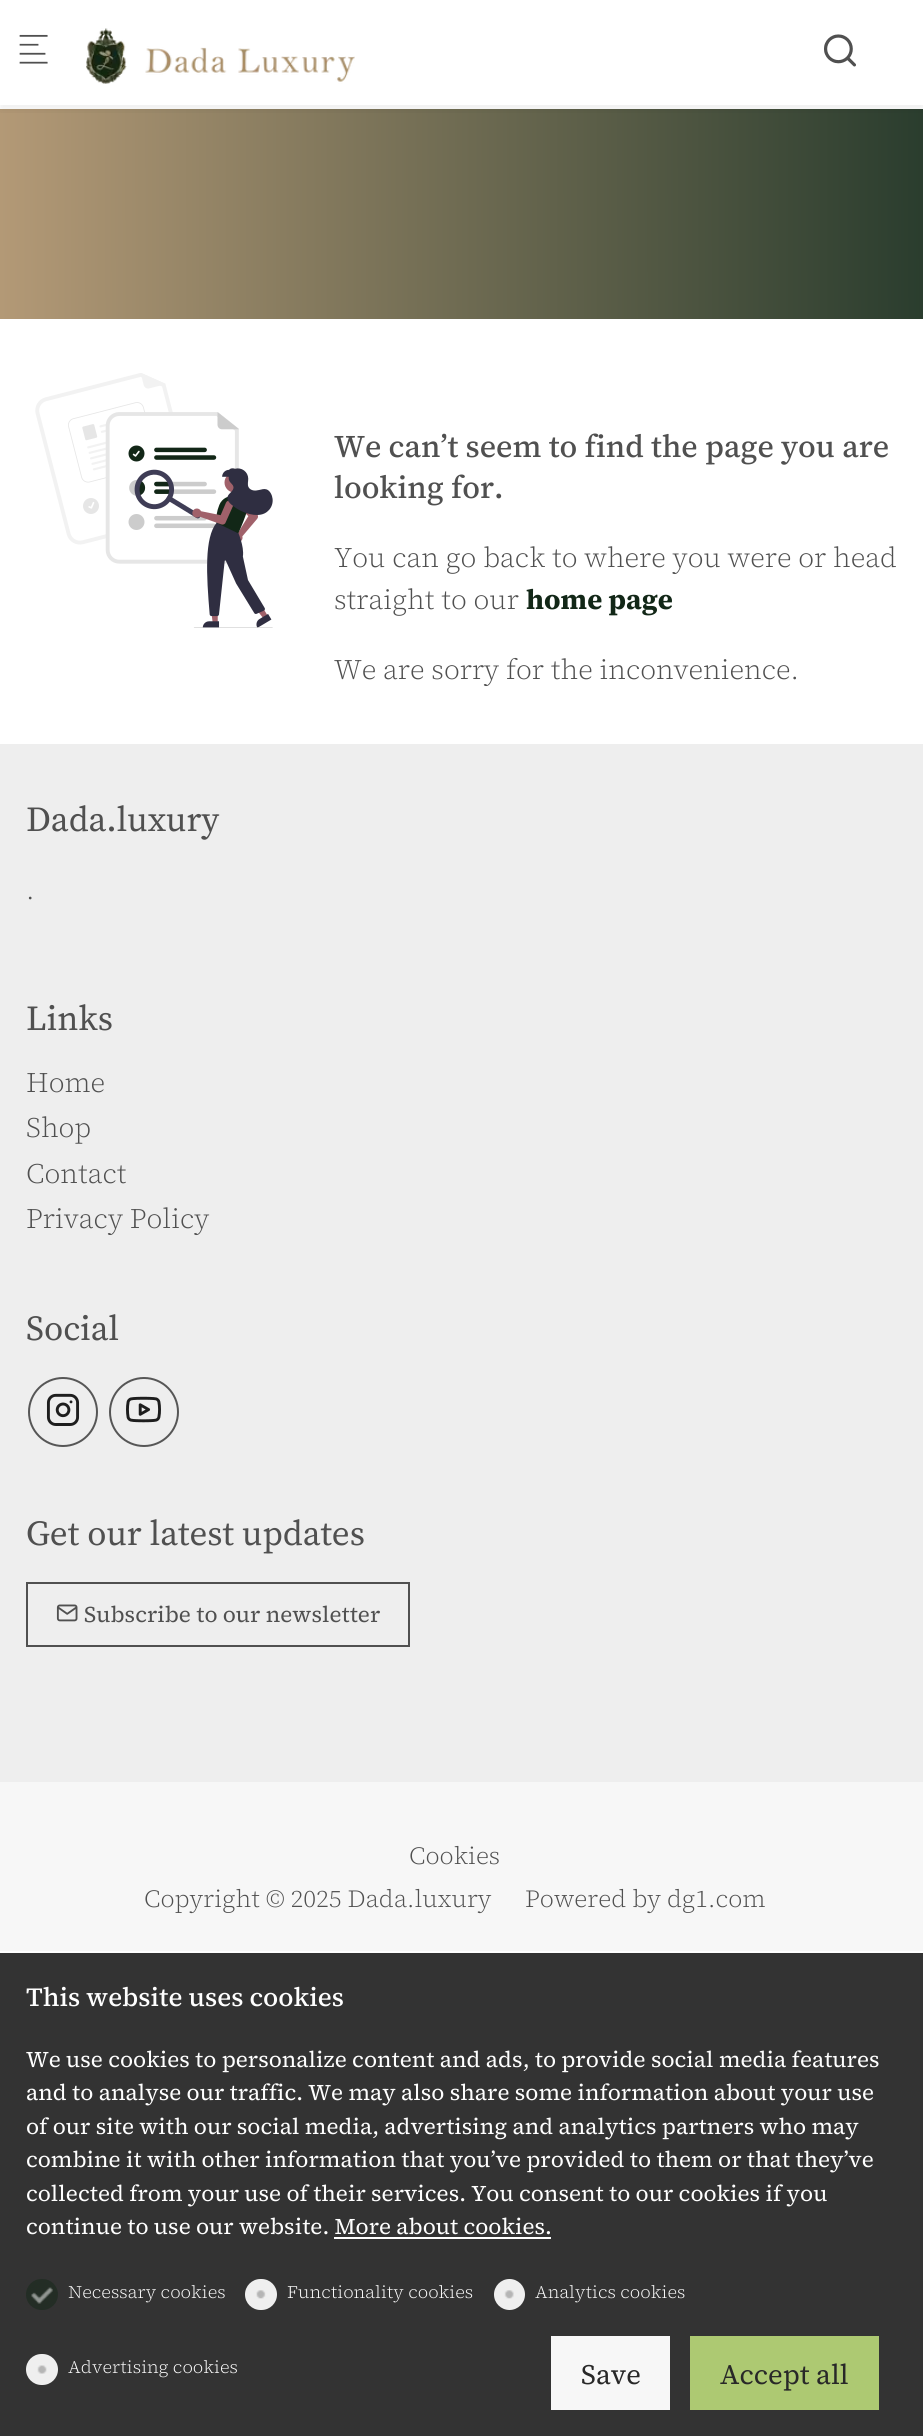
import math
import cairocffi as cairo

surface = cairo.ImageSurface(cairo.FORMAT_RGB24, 923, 2436)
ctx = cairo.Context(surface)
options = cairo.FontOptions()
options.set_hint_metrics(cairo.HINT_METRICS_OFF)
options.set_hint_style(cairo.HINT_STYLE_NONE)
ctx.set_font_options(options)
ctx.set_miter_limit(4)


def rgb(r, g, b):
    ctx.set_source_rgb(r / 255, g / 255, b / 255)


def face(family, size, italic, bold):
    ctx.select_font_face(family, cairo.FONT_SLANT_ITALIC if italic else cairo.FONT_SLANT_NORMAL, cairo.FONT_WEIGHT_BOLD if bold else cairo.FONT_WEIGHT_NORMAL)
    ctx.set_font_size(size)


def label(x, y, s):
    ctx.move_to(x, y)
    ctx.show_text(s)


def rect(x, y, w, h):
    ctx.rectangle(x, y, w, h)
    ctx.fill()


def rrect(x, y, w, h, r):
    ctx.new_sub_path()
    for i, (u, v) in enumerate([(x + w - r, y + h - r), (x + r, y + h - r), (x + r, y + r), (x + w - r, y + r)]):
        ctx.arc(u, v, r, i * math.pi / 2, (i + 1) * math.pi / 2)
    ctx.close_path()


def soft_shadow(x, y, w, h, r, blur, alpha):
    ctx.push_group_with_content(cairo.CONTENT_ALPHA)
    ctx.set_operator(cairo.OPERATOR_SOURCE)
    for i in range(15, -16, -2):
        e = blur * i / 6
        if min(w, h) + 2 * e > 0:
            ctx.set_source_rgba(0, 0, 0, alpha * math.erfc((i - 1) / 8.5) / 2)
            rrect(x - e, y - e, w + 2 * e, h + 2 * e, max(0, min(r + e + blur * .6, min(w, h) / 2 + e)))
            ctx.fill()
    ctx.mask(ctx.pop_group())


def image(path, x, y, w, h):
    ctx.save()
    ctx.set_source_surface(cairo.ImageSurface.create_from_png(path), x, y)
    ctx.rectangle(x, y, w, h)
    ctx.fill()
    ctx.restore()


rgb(255, 255, 255)
ctx.paint()
gradient = cairo.LinearGradient(0, 214, 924, 213)
gradient.add_color_stop_rgba(0, 0.702, 0.6, 0.463, 1)
gradient.add_color_stop_rgba(1, 0.165, 0.239, 0.18, 1)
ctx.set_source(gradient)
rect(0, 109, 923, 210)
ctx.save()
ctx.rectangle(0, 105, 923, 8)
ctx.clip()
rgb(0, 0, 0)
soft_shadow(0, 5, 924, 105, 0, 6, 0.07)
ctx.restore()
image('image0.png', 19, 34, 29, 30)
image('image1.png', 86, 28, 269, 56)
image('image2.png', 824, 34, 32, 33)
image('image3.png', 35, 373, 238, 255)
face('Source Serif 4 Medium', 31.5, 0, 0)
rgb(80, 80, 80)
label(334, 457, 'We can’t seem to find the page you are')
label(334, 498, 'looking for.')
face('Source Serif 4 Light', 28, 0, 0)
label(334, 567, 'You can go back to where you were or head')
label(334, 609, 'straight to our')
face('Source Serif 4', 28, 0, 1)
rgb(18, 39, 23)
label(526, 609, 'home page')
face('Source Serif 4 Light', 28, 0, 0)
rgb(80, 80, 80)
label(334, 679, 'We are sorry for the inconvenience.')
rgb(238, 238, 238)
rect(0, 744, 923, 1038)
face('Source Serif 4', 35, 0, 0)
rgb(80, 80, 80)
label(26, 831, 'Dada.luxury')
face('Source Serif 4 Light', 28, 0, 0)
label(26, 899, '.')
face('Source Serif 4', 35, 0, 0)
label(26, 1030, 'Links')
face('Source Serif 4 Light', 28, 0, 0)
label(26, 1092, 'Home')
label(26, 1137, 'Shop')
label(26, 1183, 'Contact')
label(26, 1228, 'Privacy Policy')
face('Source Serif 4', 35, 0, 0)
label(26, 1340, 'Social')
ctx.new_path()
ctx.arc(63, 1412, 34, 0, 2 * math.pi)
rgb(86, 86, 86)
ctx.stroke()
image('image4.png', 46, 1393, 34, 33)
ctx.arc(144, 1412, 34, 0, 2 * math.pi)
ctx.stroke()
image('image5.png', 126, 1396, 35, 27)
rgb(80, 80, 80)
label(26, 1545, 'Get our latest updates')
ctx.rectangle(27, 1583, 382, 63)
ctx.stroke()
image('image6.png', 56, 1604, 22, 18)
face('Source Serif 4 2', 22.4, 0, 0)
label(84, 1622, 'Subscribe to our newsletter')
rgb(247, 247, 247)
rect(0, 1782, 923, 169)
face('Source Serif 4 2 Light', 24.5, 0, 0)
rgb(80, 80, 80)
label(409, 1864, 'Cookies')
label(144, 1907, 'Copyright © 2025 Dada.luxury')
label(525, 1907, 'Powered by dg1.com')
rgb(51, 51, 51)
rect(0, 1953, 923, 483)
face('Source Serif 4 2 Medium', 26.25, 0, 0)
rgb(255, 255, 255)
label(26, 2006, 'This website uses cookies')
face('Source Serif 4 2', 22.4, 0, 0)
label(26, 2067, 'We use cookies to personalize content and ads, to provide social media features')
label(26, 2100, 'and to analyse our traffic. We may also share some information about your use')
label(26, 2134, 'of our site with our social media, advertising and analytics partners who may')
label(26, 2167, 'combine it with other information that you’ve provided to them or that they’ve')
label(26, 2201, 'collected from your use of their services. You consent to our cookies if you')
label(26, 2234, 'continue to use our website. More about cookies.')
rect(334, 2237, 217, 2)
rgb(35, 45, 37)
rrect(26, 2279, 32, 31, 15.5)
ctx.fill()
image('image7.png', 31, 2287, 22, 17)
face('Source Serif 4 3 Light', 17.5, 0, 0)
rgb(255, 255, 255)
label(68, 2298, 'Necessary cookies')
rgb(239, 239, 239)
rrect(245, 2279, 32, 31, 15.5)
ctx.fill()
image('image8.png', 256, 2290, 10, 9)
rgb(255, 255, 255)
label(287, 2298, 'Functionality cookies')
rgb(239, 239, 239)
ctx.new_path()
ctx.arc(509.5, 2294.5, 15.5, 0, 2 * math.pi)
ctx.fill()
image('image9.png', 504, 2290, 10, 9)
rgb(255, 255, 255)
label(535, 2298, 'Analytics cookies')
rgb(239, 239, 239)
rrect(26, 2354, 32, 31, 15.5)
ctx.fill()
image('image10.png', 37, 2365, 10, 9)
rgb(255, 255, 255)
label(68, 2373, 'Advertising cookies')
rgb(247, 247, 247)
rect(551, 2336, 119, 74)
face('Source Serif 4 3', 28, 0, 0)
rgb(40, 40, 40)
label(581, 2384, 'Save')
rgb(173, 201, 114)
rect(690, 2336, 189, 74)
rgb(40, 40, 40)
label(720, 2384, 'Accept all')
surface.write_to_png('render.png')
